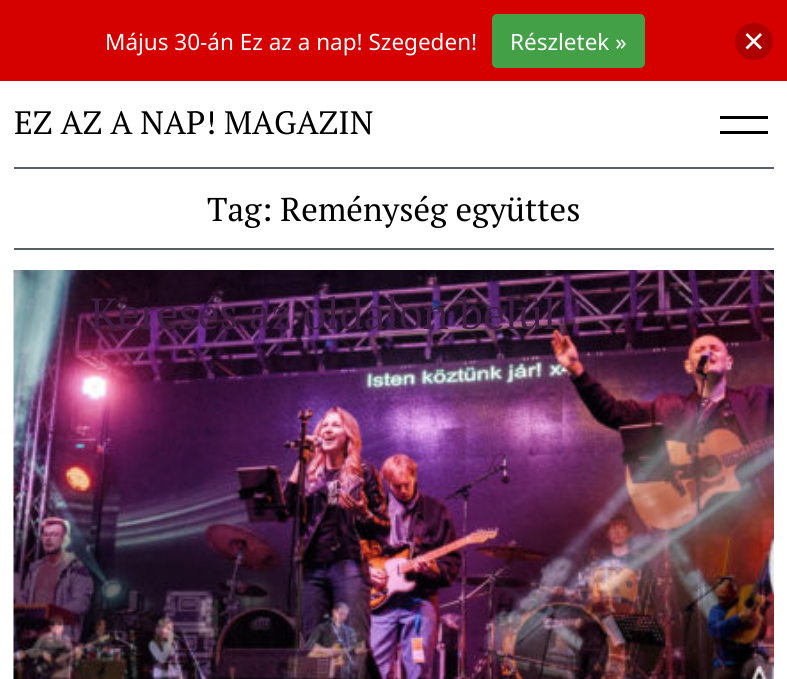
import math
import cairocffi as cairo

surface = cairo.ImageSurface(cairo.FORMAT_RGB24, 787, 679)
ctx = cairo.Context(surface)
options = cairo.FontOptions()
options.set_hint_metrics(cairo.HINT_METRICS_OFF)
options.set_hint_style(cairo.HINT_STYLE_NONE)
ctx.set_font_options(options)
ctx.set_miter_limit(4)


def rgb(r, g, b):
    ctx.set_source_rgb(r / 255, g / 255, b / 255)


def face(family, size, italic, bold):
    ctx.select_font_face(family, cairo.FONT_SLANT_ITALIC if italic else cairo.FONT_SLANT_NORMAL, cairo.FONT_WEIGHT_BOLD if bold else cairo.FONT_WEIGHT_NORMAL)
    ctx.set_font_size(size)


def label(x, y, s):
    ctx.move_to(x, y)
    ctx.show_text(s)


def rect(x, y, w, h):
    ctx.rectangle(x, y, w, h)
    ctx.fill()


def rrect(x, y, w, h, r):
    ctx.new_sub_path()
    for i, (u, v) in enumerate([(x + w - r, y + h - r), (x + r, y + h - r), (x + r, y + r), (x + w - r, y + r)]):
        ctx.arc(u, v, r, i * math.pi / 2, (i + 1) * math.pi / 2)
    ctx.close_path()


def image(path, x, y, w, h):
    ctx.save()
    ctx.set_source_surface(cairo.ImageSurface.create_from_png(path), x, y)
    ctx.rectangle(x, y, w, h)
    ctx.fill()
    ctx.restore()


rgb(255, 255, 255)
ctx.paint()
rgb(213, 0, 0)
rect(0, 0, 787, 81)
face('Noto Sans', 22.5, 0, 0)
rgb(255, 255, 255)
label(105, 50, 'Május 30-án Ez az a nap! Szegeden!')
rgb(67, 160, 71)
rrect(492, 14, 153, 54, 5)
ctx.fill()
rgb(255, 255, 255)
label(510, 50, 'Részletek »')
rgb(175, 0, 0)
rrect(735, 23, 38, 37, 18.5)
ctx.fill()
image('image0.png', 745, 33, 17, 17)
face('PT Serif', 32.4, 0, 0)
rgb(0, 0, 0)
label(14, 134, 'EZ AZ A NAP! MAGAZIN')
rect(720, 116, 48, 3)
rect(720, 131, 48, 3)
rgb(83, 95, 105)
rect(14, 167, 760, 2)
face('PT Serif', 33, 0, 0)
rgb(0, 0, 0)
label(207, 221, 'Tag: Reménység együttes')
rgb(83, 95, 105)
rect(14, 248, 760, 2)
image('image1.png', 13, 270, 761, 409)
face('PT Serif', 43.5, 0, 0)
rgb(65, 30, 67)
label(90, 329, 'Keresés az oldalon belül')
surface.write_to_png('render.png')
